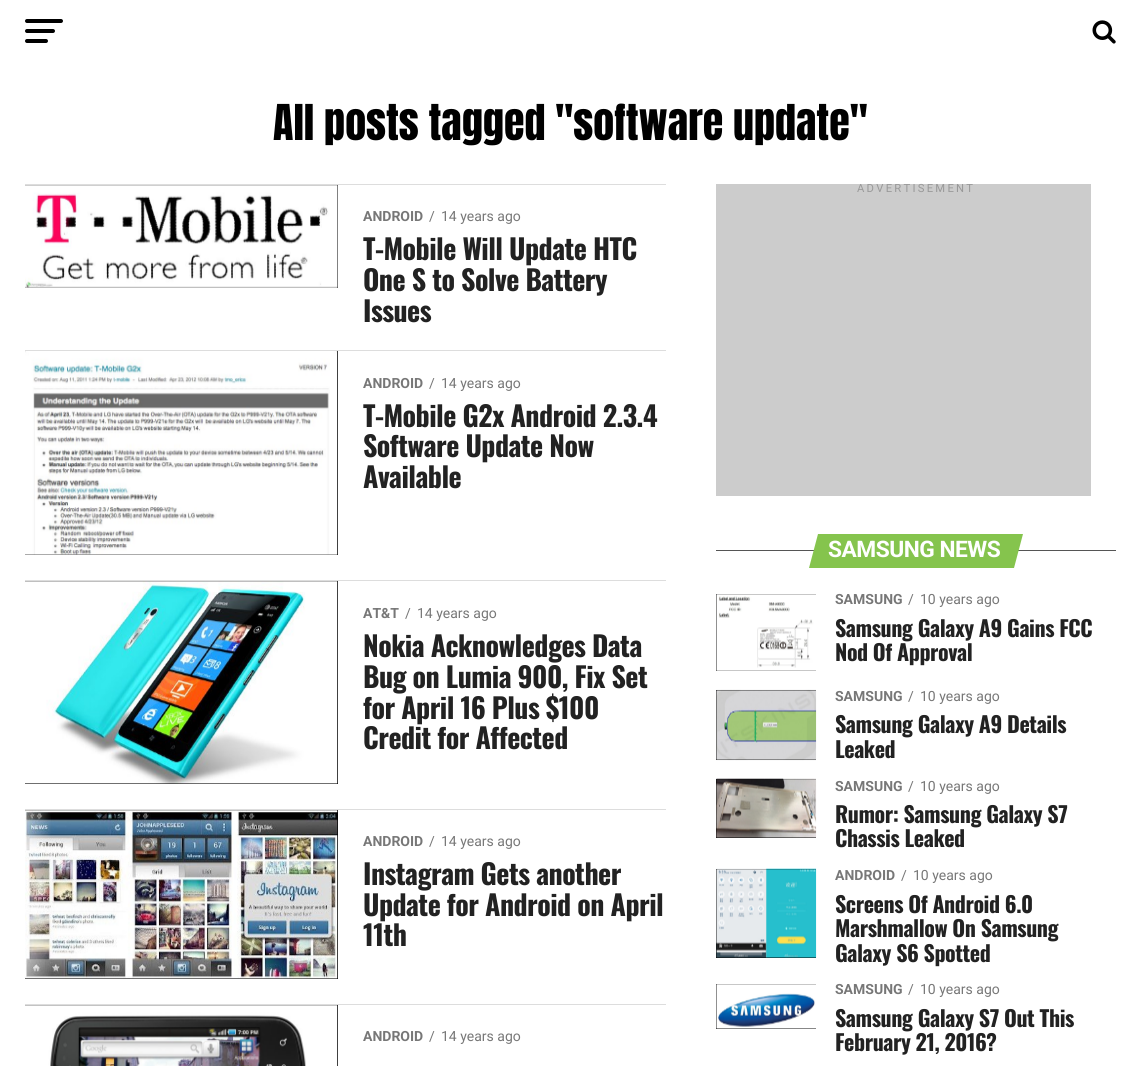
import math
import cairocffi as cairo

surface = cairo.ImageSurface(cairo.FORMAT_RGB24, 1141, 1066)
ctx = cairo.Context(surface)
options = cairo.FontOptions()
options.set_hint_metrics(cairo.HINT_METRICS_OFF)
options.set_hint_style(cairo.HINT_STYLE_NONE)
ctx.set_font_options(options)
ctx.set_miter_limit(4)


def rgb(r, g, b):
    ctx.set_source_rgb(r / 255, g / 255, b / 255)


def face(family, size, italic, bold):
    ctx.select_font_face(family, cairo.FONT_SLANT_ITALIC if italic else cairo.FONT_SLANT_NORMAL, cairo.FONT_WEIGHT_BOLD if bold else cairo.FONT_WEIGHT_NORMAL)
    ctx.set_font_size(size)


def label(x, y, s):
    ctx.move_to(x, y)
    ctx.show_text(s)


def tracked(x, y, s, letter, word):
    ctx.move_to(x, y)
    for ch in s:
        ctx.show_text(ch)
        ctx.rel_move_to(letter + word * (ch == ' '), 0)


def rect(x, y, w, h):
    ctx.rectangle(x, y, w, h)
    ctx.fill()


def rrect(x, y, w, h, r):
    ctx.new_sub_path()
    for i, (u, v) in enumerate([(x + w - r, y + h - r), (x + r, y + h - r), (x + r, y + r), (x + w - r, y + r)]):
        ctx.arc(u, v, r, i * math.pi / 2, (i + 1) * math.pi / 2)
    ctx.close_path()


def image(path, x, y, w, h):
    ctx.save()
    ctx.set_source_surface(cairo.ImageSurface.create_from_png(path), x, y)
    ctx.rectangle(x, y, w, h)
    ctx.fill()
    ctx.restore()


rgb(255, 255, 255)
ctx.paint()
rgb(0, 0, 0)
rrect(25, 19, 38, 4, 2)
ctx.fill()
rrect(25, 29, 30, 4, 2)
ctx.fill()
rrect(25, 39, 23, 4, 2)
ctx.fill()
image('image0.png', 1092, 20, 24, 24)
face('Anton', 42, 0, 0)
label(273, 140, 'All posts tagged "software update"')
rgb(221, 221, 221)
rect(25, 184, 641, 1)
rgb(0, 0, 0)
rect(25, 185, 313, 103)
image('image1.png', 25, 185, 313, 103)
face('Roboto', 14, 0, 1)
rgb(119, 119, 119)
label(363, 221, 'ANDROID')
face('Roboto', 14, 0, 0)
label(429, 221, '/')
label(441, 221, '14 years ago')
face('Oswald', 28, 0, 1)
rgb(34, 34, 34)
tracked(363, 260, 'T-Mobile Will Update HTC', -0.55, 0)
tracked(363, 291, 'One S to Solve Battery', -0.55, 0)
tracked(363, 322, 'Issues', -0.55, 0)
rgb(221, 221, 221)
rect(25, 350, 641, 1)
rgb(0, 0, 0)
rect(25, 351, 313, 204)
image('image2.png', 25, 351, 313, 204)
face('Roboto', 14, 0, 1)
rgb(119, 119, 119)
label(363, 388, 'ANDROID')
face('Roboto', 14, 0, 0)
label(429, 388, '/')
label(441, 388, '14 years ago')
face('Oswald', 28, 0, 1)
rgb(34, 34, 34)
tracked(363, 427, 'T-Mobile G2x Android 2.3.4', -0.55, 0)
tracked(363, 457, 'Software Update Now', -0.55, 0)
tracked(363, 488, 'Available', -0.55, 0)
rgb(221, 221, 221)
rect(25, 580, 641, 1)
rgb(0, 0, 0)
rect(25, 581, 313, 203)
image('image3.png', 25, 581, 313, 203)
face('Roboto', 14, 0, 1)
rgb(119, 119, 119)
label(363, 618, 'AT&T')
face('Roboto', 14, 0, 0)
label(405, 618, '/')
label(417, 618, '14 years ago')
face('Oswald', 28, 0, 1)
rgb(34, 34, 34)
tracked(363, 657, 'Nokia Acknowledges Data', -0.55, 0)
tracked(363, 688, 'Bug on Lumia 900, Fix Set', -0.55, 0)
tracked(363, 719, 'for April 16 Plus $100', -0.55, 0)
tracked(363, 749, 'Credit for Affected', -0.55, 0)
rgb(221, 221, 221)
rect(25, 809, 641, 1)
rgb(0, 0, 0)
rect(25, 810, 313, 169)
image('image4.png', 25, 810, 313, 169)
face('Roboto', 14, 0, 1)
rgb(119, 119, 119)
label(363, 846, 'ANDROID')
face('Roboto', 14, 0, 0)
label(429, 846, '/')
label(441, 846, '14 years ago')
face('Oswald', 28, 0, 1)
rgb(34, 34, 34)
tracked(363, 885, 'Instagram Gets another', -0.55, 0)
tracked(363, 916, 'Update for Android on April', -0.55, 0)
tracked(363, 946, '11th', -0.55, 0)
rgb(221, 221, 221)
rect(25, 1004, 641, 1)
rgb(0, 0, 0)
rect(25, 1005, 313, 61)
image('image5.png', 25, 1005, 313, 61)
face('Roboto', 14, 0, 1)
rgb(119, 119, 119)
label(363, 1041, 'ANDROID')
face('Roboto', 14, 0, 0)
label(429, 1041, '/')
label(441, 1041, '14 years ago')
rgb(204, 204, 204)
rect(716, 184, 375, 312)
face('Roboto', 11.25, 0, 0)
rgb(153, 153, 153)
tracked(857, 192, 'ADVERTISEMENT', 2.25, 0)
rgb(85, 85, 85)
rect(716, 550, 400, 1)
rgb(133, 196, 77)
ctx.new_path()
ctx.move_to(818, 534)
ctx.line_to(1023, 534)
ctx.line_to(1014, 568)
ctx.line_to(809, 568)
ctx.close_path()
ctx.fill()
face('Roboto', 22.75, 0, 1)
rgb(255, 255, 255)
tracked(828, 557, 'SAMSUNG NEWS', -0.5, 0)
rgb(0, 0, 0)
rect(716, 594, 100, 77)
image('image6.png', 716, 594, 100, 77)
face('Roboto', 14, 0, 1)
rgb(119, 119, 119)
label(835, 604, 'SAMSUNG')
face('Roboto', 14, 0, 0)
label(908, 604, '/')
label(920, 604, '10 years ago')
face('Oswald', 22, 0, 1)
rgb(34, 34, 34)
tracked(835, 637, 'Samsung Galaxy A9 Gains FCC', -0.45, 0)
tracked(835, 661, 'Nod Of Approval', -0.45, 0)
rgb(0, 0, 0)
rect(716, 690, 100, 70)
image('image7.png', 716, 689, 101, 72)
face('Roboto', 14, 0, 1)
rgb(119, 119, 119)
label(835, 701, 'SAMSUNG')
face('Roboto', 14, 0, 0)
label(908, 701, '/')
label(920, 701, '10 years ago')
face('Oswald', 22, 0, 1)
rgb(34, 34, 34)
tracked(835, 733, 'Samsung Galaxy A9 Details', -0.45, 0)
tracked(835, 758, 'Leaked', -0.45, 0)
rgb(0, 0, 0)
rect(716, 779, 100, 59)
image('image8.png', 716, 778, 101, 60)
face('Roboto', 14, 0, 1)
rgb(119, 119, 119)
label(835, 791, 'SAMSUNG')
face('Roboto', 14, 0, 0)
label(908, 791, '/')
label(920, 791, '10 years ago')
face('Oswald', 22, 0, 1)
rgb(34, 34, 34)
tracked(835, 823, 'Rumor: Samsung Galaxy S7', -0.45, 0)
tracked(835, 847, 'Chassis Leaked', -0.45, 0)
rgb(0, 0, 0)
rect(716, 869, 100, 89)
image('image9.png', 716, 868, 101, 90)
face('Roboto', 14, 0, 1)
rgb(119, 119, 119)
label(835, 880, 'ANDROID')
face('Roboto', 14, 0, 0)
label(901, 880, '/')
label(913, 880, '10 years ago')
face('Oswald', 22, 0, 1)
rgb(34, 34, 34)
tracked(835, 913, 'Screens Of Android 6.0', -0.45, 0)
tracked(835, 937, 'Marshmallow On Samsung', -0.45, 0)
tracked(835, 962, 'Galaxy S6 Spotted', -0.45, 0)
rgb(0, 0, 0)
rect(716, 984, 100, 45)
image('image10.png', 716, 984, 100, 45)
face('Roboto', 14, 0, 1)
rgb(119, 119, 119)
label(835, 994, 'SAMSUNG')
face('Roboto', 14, 0, 0)
label(908, 994, '/')
label(920, 994, '10 years ago')
face('Oswald', 22, 0, 1)
rgb(34, 34, 34)
tracked(835, 1027, 'Samsung Galaxy S7 Out This', -0.45, 0)
tracked(835, 1051, 'February 21, 2016?', -0.45, 0)
surface.write_to_png('render.png')
